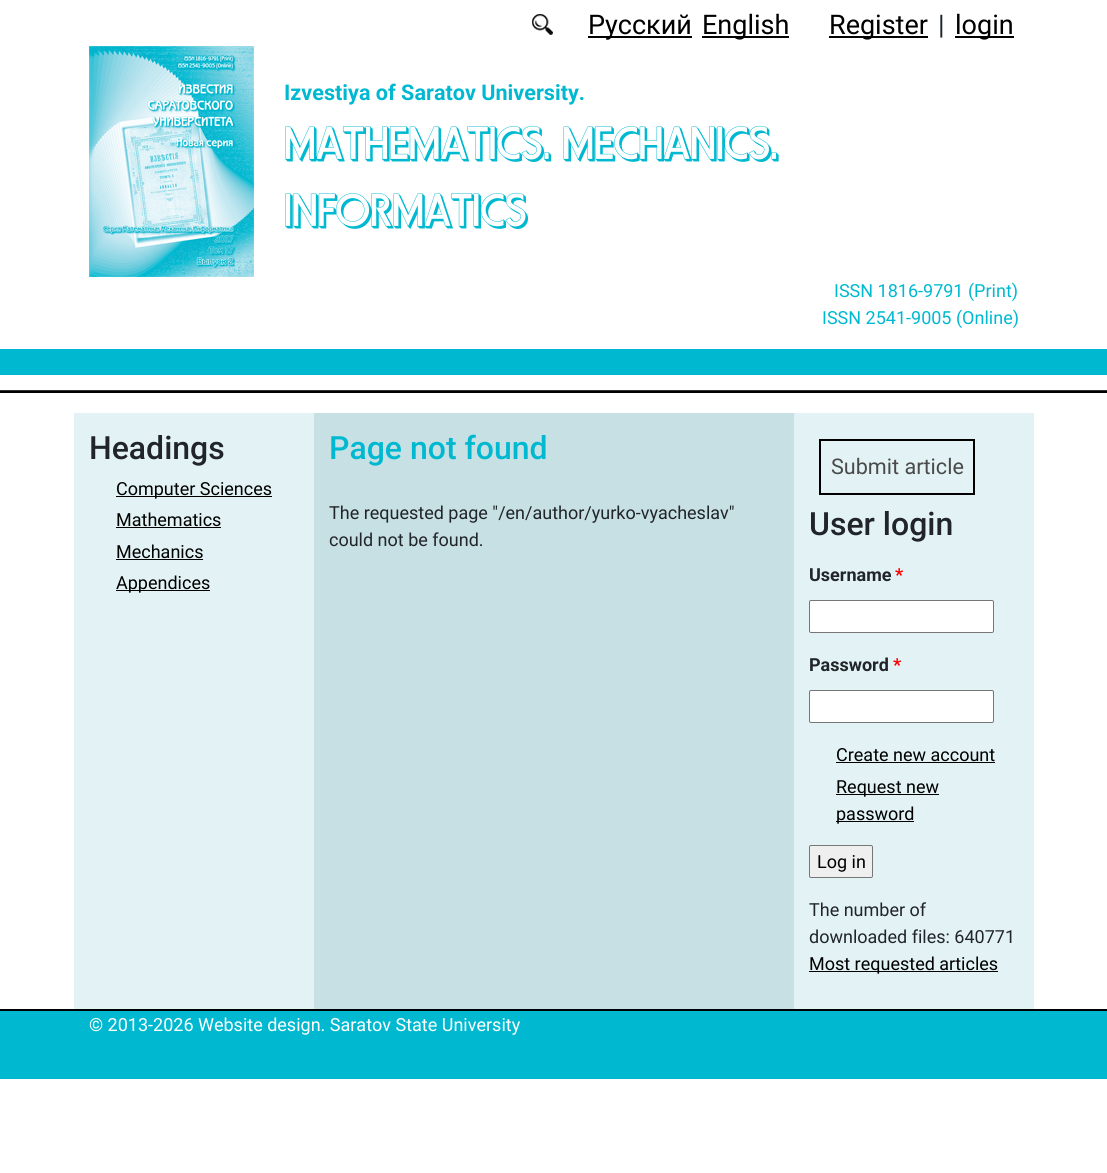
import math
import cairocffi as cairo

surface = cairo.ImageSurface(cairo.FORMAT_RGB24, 1107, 1173)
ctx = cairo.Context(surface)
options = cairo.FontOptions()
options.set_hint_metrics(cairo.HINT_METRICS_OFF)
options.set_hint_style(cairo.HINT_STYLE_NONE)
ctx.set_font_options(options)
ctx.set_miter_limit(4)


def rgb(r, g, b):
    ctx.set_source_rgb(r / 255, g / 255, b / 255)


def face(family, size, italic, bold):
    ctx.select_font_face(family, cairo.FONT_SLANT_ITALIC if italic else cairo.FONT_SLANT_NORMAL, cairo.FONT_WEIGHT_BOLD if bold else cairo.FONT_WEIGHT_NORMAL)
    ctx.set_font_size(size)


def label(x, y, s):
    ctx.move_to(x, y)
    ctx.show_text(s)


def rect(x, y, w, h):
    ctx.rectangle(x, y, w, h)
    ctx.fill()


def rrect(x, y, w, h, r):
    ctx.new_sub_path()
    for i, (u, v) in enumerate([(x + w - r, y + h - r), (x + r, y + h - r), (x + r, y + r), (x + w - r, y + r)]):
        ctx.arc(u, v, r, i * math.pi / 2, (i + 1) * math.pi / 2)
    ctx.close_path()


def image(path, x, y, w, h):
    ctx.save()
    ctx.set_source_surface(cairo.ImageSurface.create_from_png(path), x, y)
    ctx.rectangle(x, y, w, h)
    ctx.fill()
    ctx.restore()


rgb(255, 255, 255)
ctx.paint()
image('image0.png', 532, 14, 21, 21)
rgb(0, 0, 0)
rect(588, 36, 104, 2)
face('Roboto', 27, 0, 0)
label(588, 34, 'Русский')
rect(702, 36, 87, 2)
label(702, 34, 'English')
rect(829, 36, 99, 2)
label(829, 34, 'Register')
rgb(33, 37, 41)
label(938, 34, '|')
rgb(0, 0, 0)
rect(955, 36, 59, 2)
label(955, 34, 'login')
image('image1.png', 89, 46, 165, 231)
face('Roboto', 21.6, 0, 1)
rgb(0, 185, 209)
label(284, 100, 'Izvestiya of Saratov University.')
face('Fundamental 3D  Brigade', 45, 0, 0)
label(284, 159, 'MATHEMATICS. MECHANICS.')
label(284, 226, 'INFORMATICS')
face('Roboto', 18, 0, 0)
label(834, 297, 'ISSN 1816-9791 (Print)')
label(822, 324, 'ISSN 2541-9005 (Online)')
rect(0, 349, 1107, 26)
rgb(51, 51, 51)
rect(0, 390, 1107, 1)
rgb(0, 0, 0)
rect(0, 391, 1107, 2)
rgb(227, 243, 245)
rect(74, 413, 240, 596)
face('Roboto Medium', 32, 0, 0)
rgb(33, 37, 41)
label(89, 459, 'Headings')
rgb(0, 0, 0)
rect(116, 496, 156, 1)
face('Roboto', 18, 0, 0)
label(116, 495, 'Computer Sciences')
label(116, 526, 'Mathematics')
rect(116, 527, 105, 1)
label(116, 558, 'Mechanics')
rect(116, 559, 87, 1)
rect(116, 590, 94, 1)
label(116, 589, 'Appendices')
rgb(199, 224, 227)
rect(314, 413, 480, 596)
face('Roboto Medium', 32, 0, 0)
rgb(0, 185, 209)
label(329, 459, 'Page not found')
face('Roboto', 18, 0, 0)
rgb(33, 37, 41)
label(329, 519, 'The requested page "/en/author/yurko-vyacheslav"')
label(329, 546, 'could not be found.')
rgb(227, 243, 245)
rect(794, 413, 240, 596)
ctx.rectangle(820, 440, 154, 54)
rgb(0, 0, 0)
ctx.stroke()
face('Roboto', 21.6, 0, 0)
rgb(74, 74, 74)
label(831, 474, 'Submit article')
face('Roboto Medium', 32, 0, 0)
rgb(33, 37, 41)
label(809, 535, 'User login')
face('Roboto', 18, 0, 1)
label(809, 581, 'Username')
rgb(255, 0, 0)
label(895, 581, '*')
rgb(255, 255, 255)
rrect(809.5, 600.5, 184, 32, 1.5)
ctx.fill_preserve()
rgb(118, 118, 118)
ctx.set_line_width(1)
ctx.stroke()
rgb(33, 37, 41)
label(809, 671, 'Password')
rgb(255, 0, 0)
label(893, 671, '*')
rgb(255, 255, 255)
rrect(809.5, 690.5, 184, 32, 1.5)
ctx.fill_preserve()
rgb(118, 118, 118)
ctx.stroke()
face('Roboto', 18, 0, 0)
rgb(0, 0, 0)
label(836, 761, 'Create new account')
rect(836, 762, 159, 1)
rect(836, 794, 103, 1)
label(836, 793, 'Request new')
rect(836, 821, 78, 1)
label(836, 820, 'password')
rgb(239, 239, 239)
rrect(809.5, 845.5, 63, 32, 1.5)
ctx.fill_preserve()
rgb(118, 118, 118)
ctx.stroke()
rgb(0, 0, 0)
label(817, 868, 'Log in')
rgb(33, 37, 41)
label(809, 916, 'The number of')
label(809, 943, 'downloaded files: 640771')
rgb(0, 0, 0)
rect(809, 971, 189, 1)
label(809, 970, 'Most requested articles')
rgb(0, 185, 209)
rect(0, 1011, 1107, 68)
rgb(0, 0, 0)
rect(0, 1009, 1107, 2)
rgb(255, 255, 255)
label(89, 1031, '© 2013-2026 Website design. Saratov State University')
surface.write_to_png('render.png')
